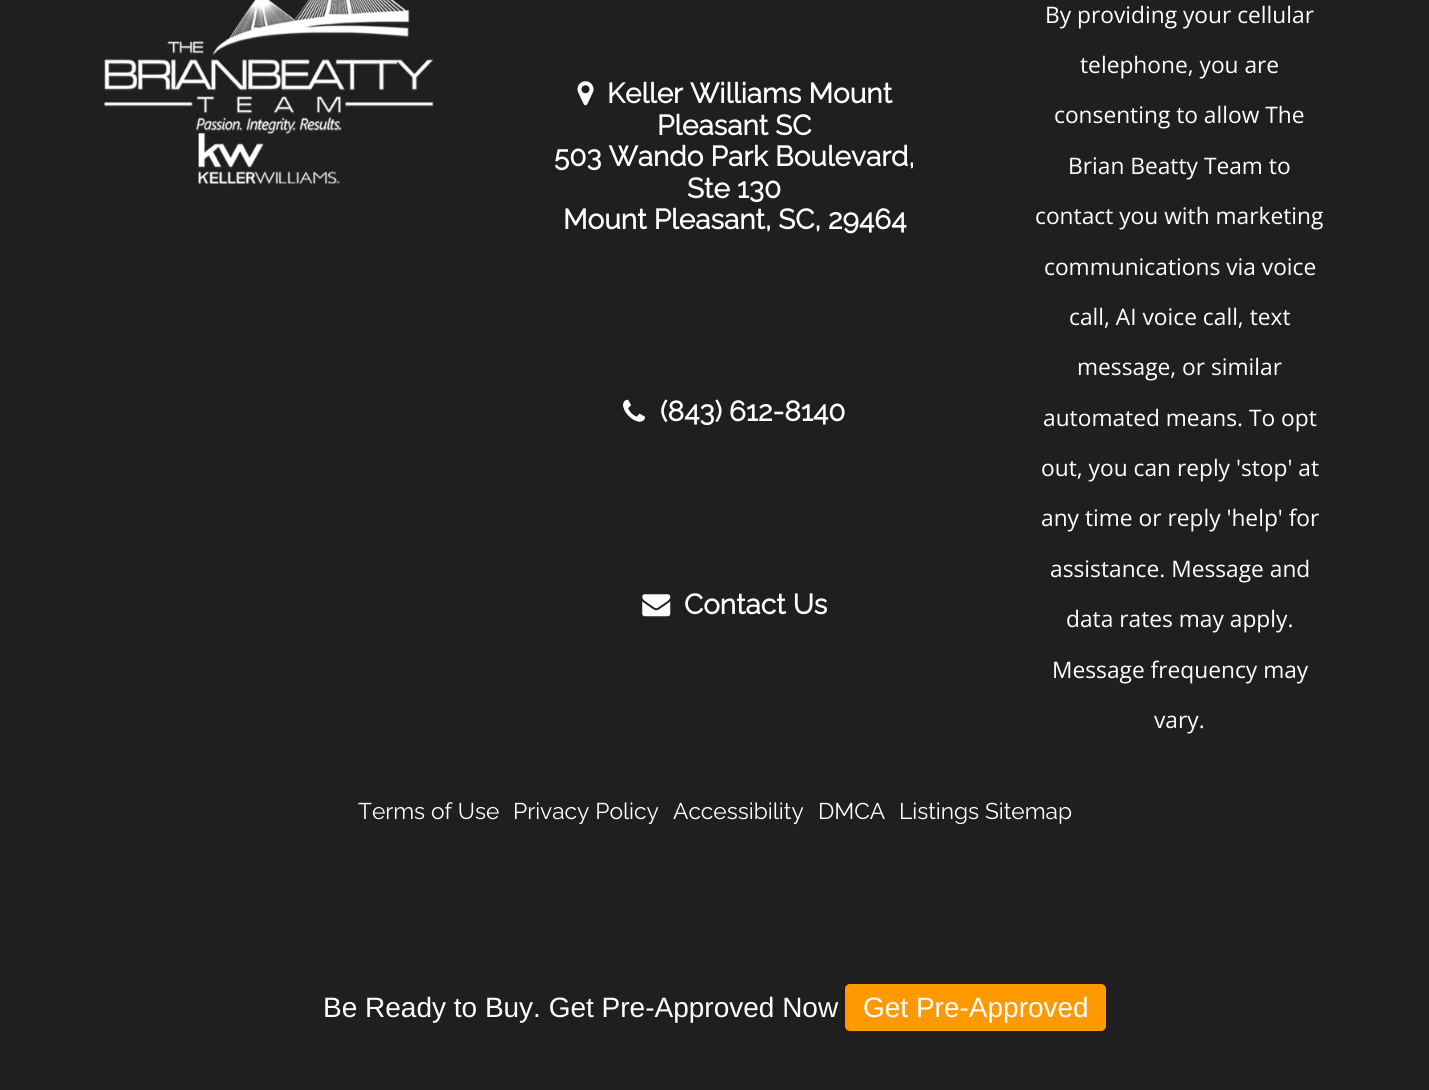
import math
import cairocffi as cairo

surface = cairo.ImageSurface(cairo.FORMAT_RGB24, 1429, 1090)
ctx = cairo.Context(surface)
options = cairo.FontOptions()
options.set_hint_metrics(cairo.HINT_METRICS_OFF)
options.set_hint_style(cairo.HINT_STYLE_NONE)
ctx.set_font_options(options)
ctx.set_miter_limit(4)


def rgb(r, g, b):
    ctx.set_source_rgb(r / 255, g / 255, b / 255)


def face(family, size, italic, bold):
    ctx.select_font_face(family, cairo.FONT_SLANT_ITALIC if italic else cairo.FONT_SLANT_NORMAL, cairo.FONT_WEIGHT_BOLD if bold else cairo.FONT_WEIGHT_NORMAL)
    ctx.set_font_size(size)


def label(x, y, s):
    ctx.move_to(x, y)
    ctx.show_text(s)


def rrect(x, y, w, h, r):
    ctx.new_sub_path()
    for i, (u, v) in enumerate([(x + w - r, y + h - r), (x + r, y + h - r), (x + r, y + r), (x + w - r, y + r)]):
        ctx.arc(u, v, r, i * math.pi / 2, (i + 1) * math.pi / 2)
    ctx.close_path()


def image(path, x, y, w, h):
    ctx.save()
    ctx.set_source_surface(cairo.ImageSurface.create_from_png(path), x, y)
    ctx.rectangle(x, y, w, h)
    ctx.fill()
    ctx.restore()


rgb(31, 31, 31)
ctx.paint()
image('image0.png', 104, 0, 330, 185)
image('image1.png', 577, 81, 17, 25)
face('Raleway', 28, 0, 1)
rgb(255, 255, 255)
label(607, 103, 'Keller Williams Mount')
label(657, 135, 'Pleasant SC')
label(554, 166, '503 Wando Park Boulevard,')
label(687, 198, 'Ste 130')
label(563, 229, 'Mount Pleasant, SC, 29464')
image('image2.png', 623, 399, 22, 23)
label(660, 421, '(843) 612-8140')
image('image3.png', 642, 594, 29, 23)
label(684, 614, 'Contact Us')
face('Open Sans', 22.75, 0, 0)
label(1045, 23, 'By providing your cellular')
label(1080, 73, 'telephone, you are')
label(1054, 123, 'consenting to allow The')
label(1068, 174, 'Brian Beatty Team to')
label(1035, 224, 'contact you with marketing')
label(1044, 275, 'communications via voice')
label(1069, 325, 'call, AI voice call, text')
label(1077, 375, 'message, or similar')
label(1043, 426, 'automated means. To opt')
label(1041, 476, 'out, you can reply \'stop\' at')
label(1041, 526, 'any time or reply \'help\' for')
label(1050, 577, 'assistance. Message and')
label(1066, 627, 'data rates may apply.')
label(1052, 678, 'Message frequency may')
label(1154, 728, 'vary.')
face('Raleway Thin', 22.75, 0, 0)
label(358, 819, 'Terms of Use')
label(513, 819, 'Privacy Policy')
label(673, 819, 'Accessibility')
label(818, 819, 'DMCA')
label(899, 819, 'Listings Sitemap')
face('Liberation Sans', 28, 0, 0)
label(323, 1017, 'Be Ready to Buy. Get Pre-Approved Now')
rgb(255, 153, 0)
rrect(845, 984, 261, 47, 5)
ctx.fill()
rgb(255, 255, 255)
label(863, 1017, 'Get Pre-Approved')
surface.write_to_png('render.png')
